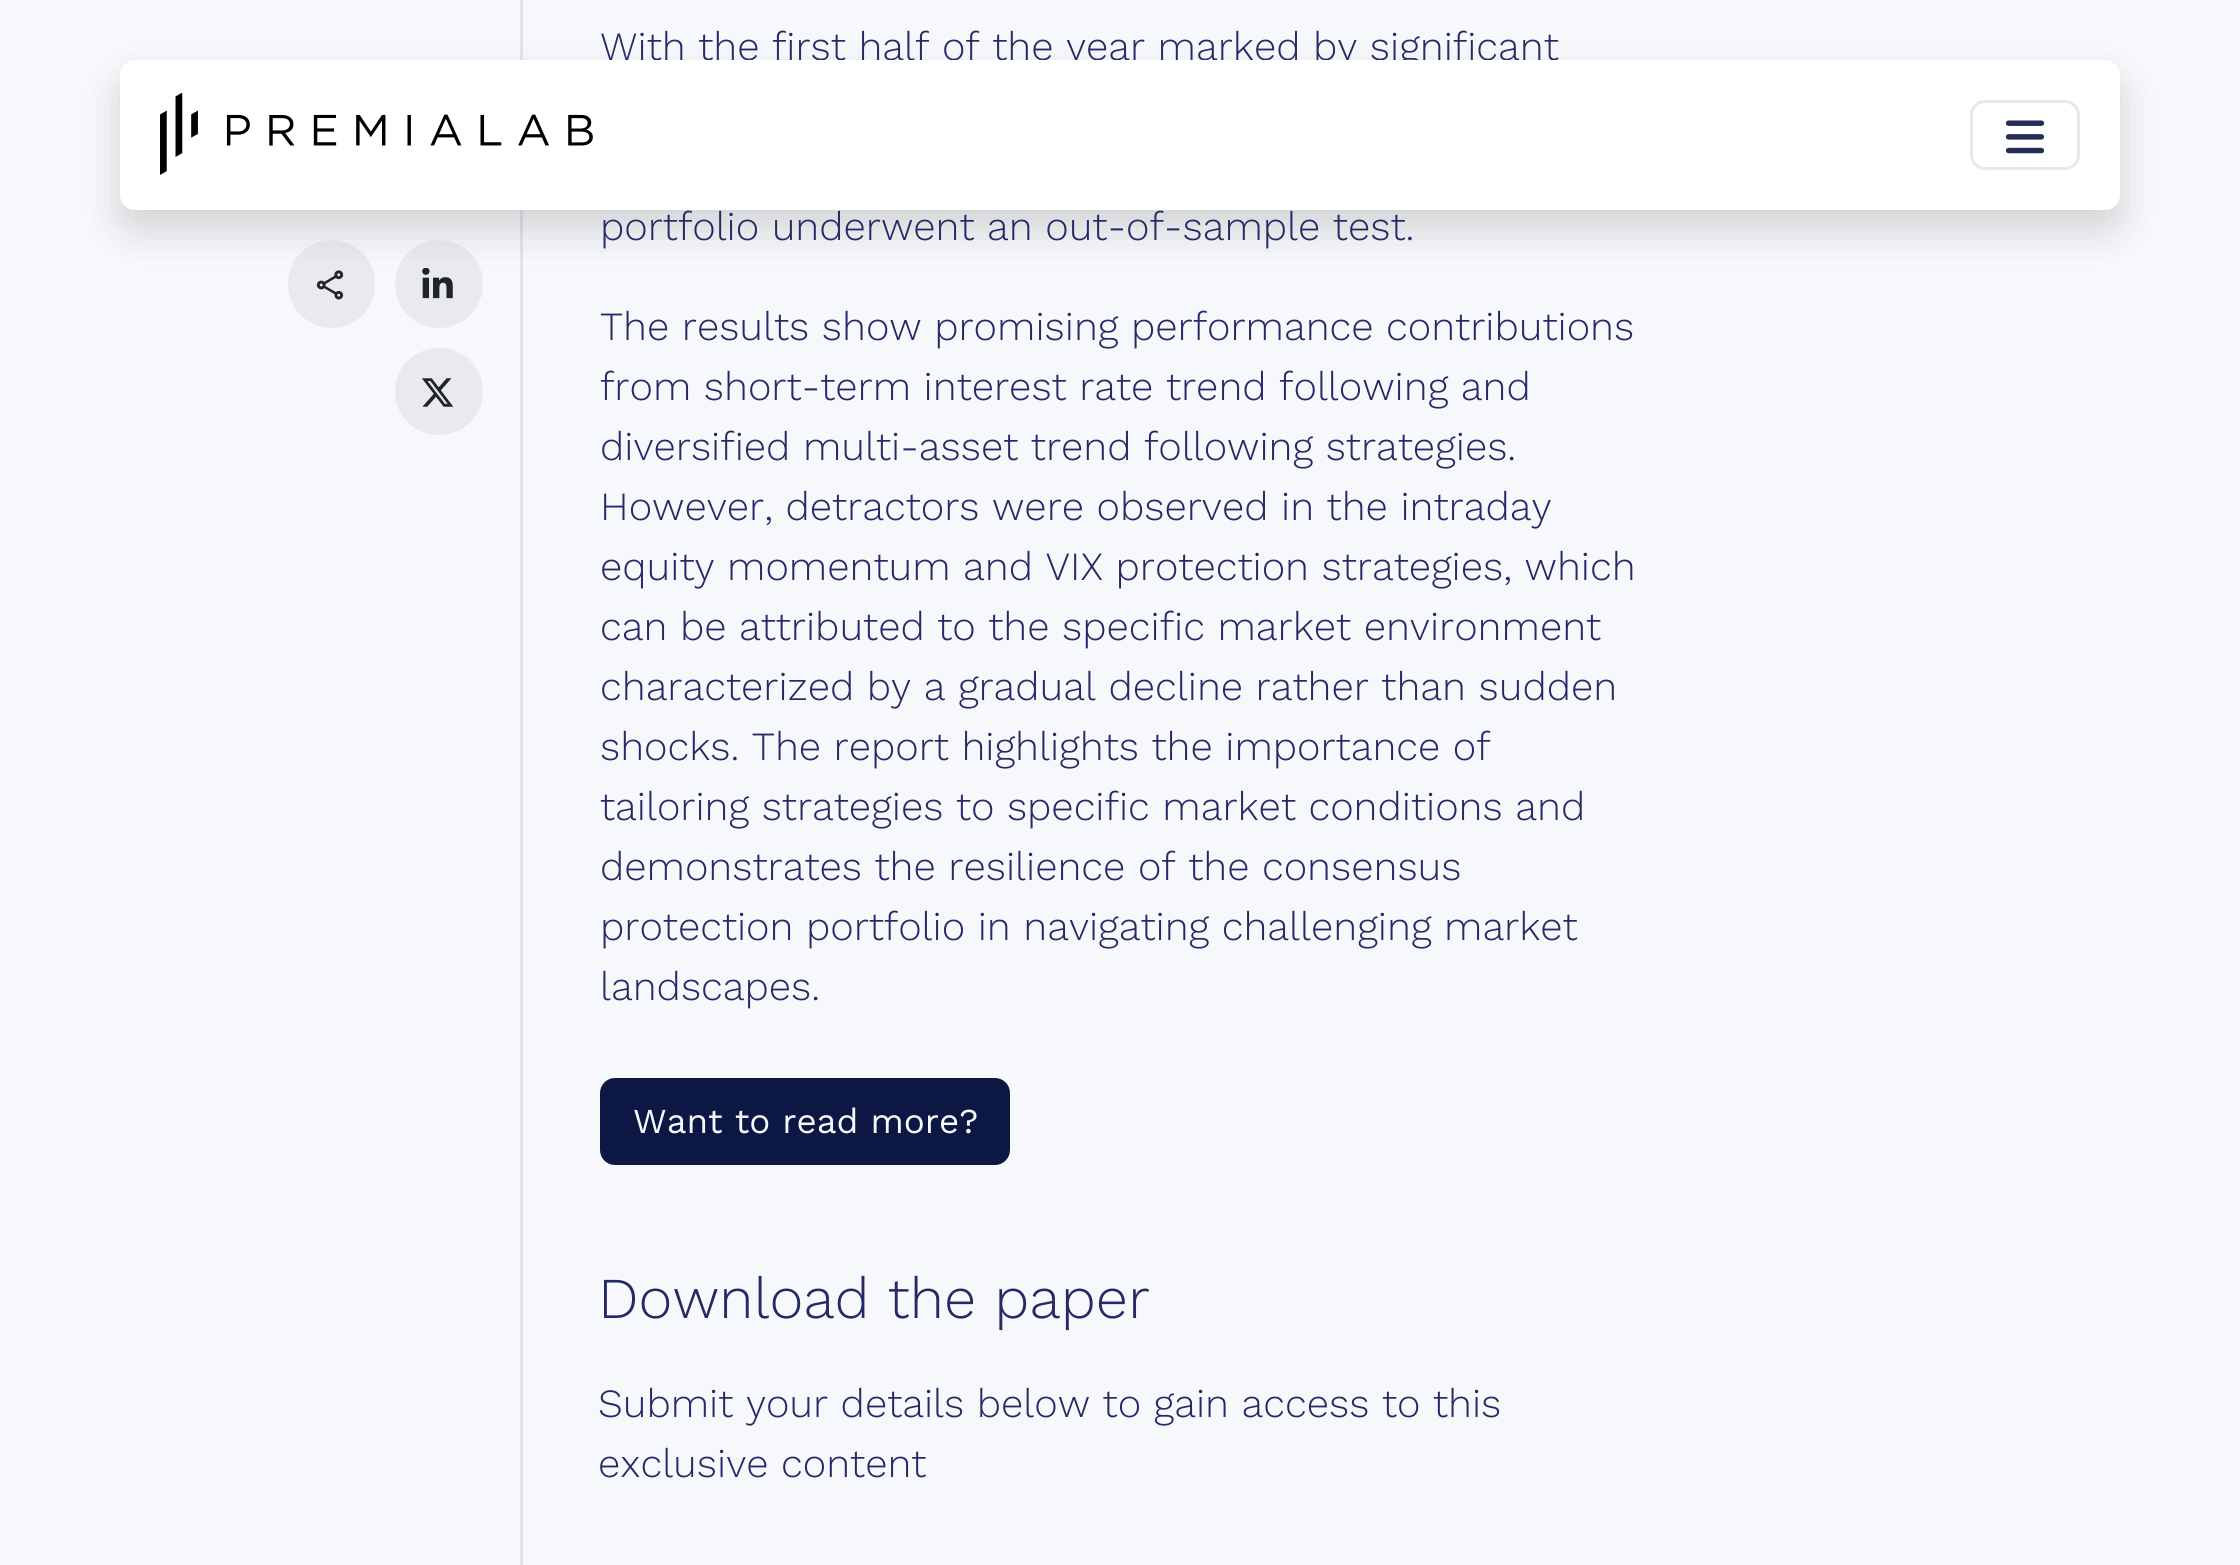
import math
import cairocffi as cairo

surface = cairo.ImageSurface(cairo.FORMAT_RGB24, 2240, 1565)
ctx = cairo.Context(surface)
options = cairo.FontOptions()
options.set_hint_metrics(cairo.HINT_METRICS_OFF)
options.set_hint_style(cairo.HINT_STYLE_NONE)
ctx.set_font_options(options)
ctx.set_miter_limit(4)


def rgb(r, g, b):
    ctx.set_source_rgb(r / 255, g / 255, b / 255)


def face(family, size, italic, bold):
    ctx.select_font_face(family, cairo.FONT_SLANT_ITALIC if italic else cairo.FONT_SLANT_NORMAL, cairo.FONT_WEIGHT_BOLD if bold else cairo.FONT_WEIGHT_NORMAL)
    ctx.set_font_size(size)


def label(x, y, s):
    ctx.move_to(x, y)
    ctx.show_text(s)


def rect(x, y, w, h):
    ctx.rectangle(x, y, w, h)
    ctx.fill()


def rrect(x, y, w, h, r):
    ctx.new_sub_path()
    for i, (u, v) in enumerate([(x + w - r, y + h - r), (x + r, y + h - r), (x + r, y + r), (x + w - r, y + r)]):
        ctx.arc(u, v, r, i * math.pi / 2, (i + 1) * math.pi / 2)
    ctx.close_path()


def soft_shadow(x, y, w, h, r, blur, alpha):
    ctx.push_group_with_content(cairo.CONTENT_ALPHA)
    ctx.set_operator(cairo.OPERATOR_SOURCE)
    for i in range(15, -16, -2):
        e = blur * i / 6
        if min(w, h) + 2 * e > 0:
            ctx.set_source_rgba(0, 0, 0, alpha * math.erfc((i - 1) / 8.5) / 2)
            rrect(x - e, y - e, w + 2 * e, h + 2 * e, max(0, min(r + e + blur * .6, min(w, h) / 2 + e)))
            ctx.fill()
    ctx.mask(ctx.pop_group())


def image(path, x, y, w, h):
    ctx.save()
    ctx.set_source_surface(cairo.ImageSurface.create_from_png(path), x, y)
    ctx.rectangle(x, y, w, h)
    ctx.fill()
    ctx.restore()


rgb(247, 248, 251)
ctx.paint()
rgb(233, 234, 240)
rrect(289.5, 241.5, 84, 85, 42)
ctx.fill_preserve()
ctx.set_line_width(3)
ctx.stroke()
image('image2.png', 316, 270, 28, 30)
ctx.arc(439, 284, 42.5, 0, 2 * math.pi)
ctx.fill_preserve()
ctx.stroke()
image('image3.png', 422, 268, 31, 31)
rgb(226, 228, 237)
rect(520, 0, 3, 1565)
rgb(0, 0, 0)
soft_shadow(120, 80, 2000, 150, 15, 20, 0.15)
face('Work Sans Light', 40, 0, 0)
rgb(37, 41, 102)
label(600, 60, 'With the first half of the year marked by significant')
rgb(255, 255, 255)
rrect(120, 60, 2000, 150, 15)
ctx.fill()
image('image0.png', 160, 93, 433, 82)
rrect(1971.5, 101.5, 107, 67, 13.5)
rgb(231, 232, 236)
ctx.stroke()
image('image1.png', 2005, 120, 40, 34)
rgb(233, 234, 240)
rrect(396.5, 349.5, 85, 84, 42)
ctx.fill_preserve()
ctx.stroke()
image('image4.png', 422, 378, 32, 29)
rgb(37, 41, 102)
label(600, 240, 'portfolio underwent an out-of-sample test.')
label(600, 340, 'The results show promising performance contributions')
label(600, 400, 'from short-term interest rate trend following and')
label(600, 460, 'diversified multi-asset trend following strategies.')
label(600, 520, 'However, detractors were observed in the intraday')
label(600, 580, 'equity momentum and VIX protection strategies, which')
label(600, 640, 'can be attributed to the specific market environment')
label(600, 700, 'characterized by a gradual decline rather than sudden')
label(600, 760, 'shocks. The report highlights the importance of')
label(600, 820, 'tailoring strategies to specific market conditions and')
label(600, 880, 'demonstrates the resilience of the consensus')
label(600, 940, 'protection portfolio in navigating challenging market')
label(600, 1000, 'landscapes.')
rgb(12, 23, 67)
rrect(601.5, 1079.5, 407, 84, 13.5)
ctx.fill_preserve()
ctx.stroke()
face('Work Sans', 35, 0, 0)
rgb(247, 248, 251)
label(633, 1133, 'Want to read more?')
face('Work Sans Light', 57.75, 0, 0)
rgb(37, 41, 102)
label(598, 1318, 'Download the paper')
face('Work Sans Light', 40, 0, 0)
label(598, 1417, 'Submit your details below to gain access to this')
label(598, 1477, 'exclusive content')
surface.write_to_png('render.png')
